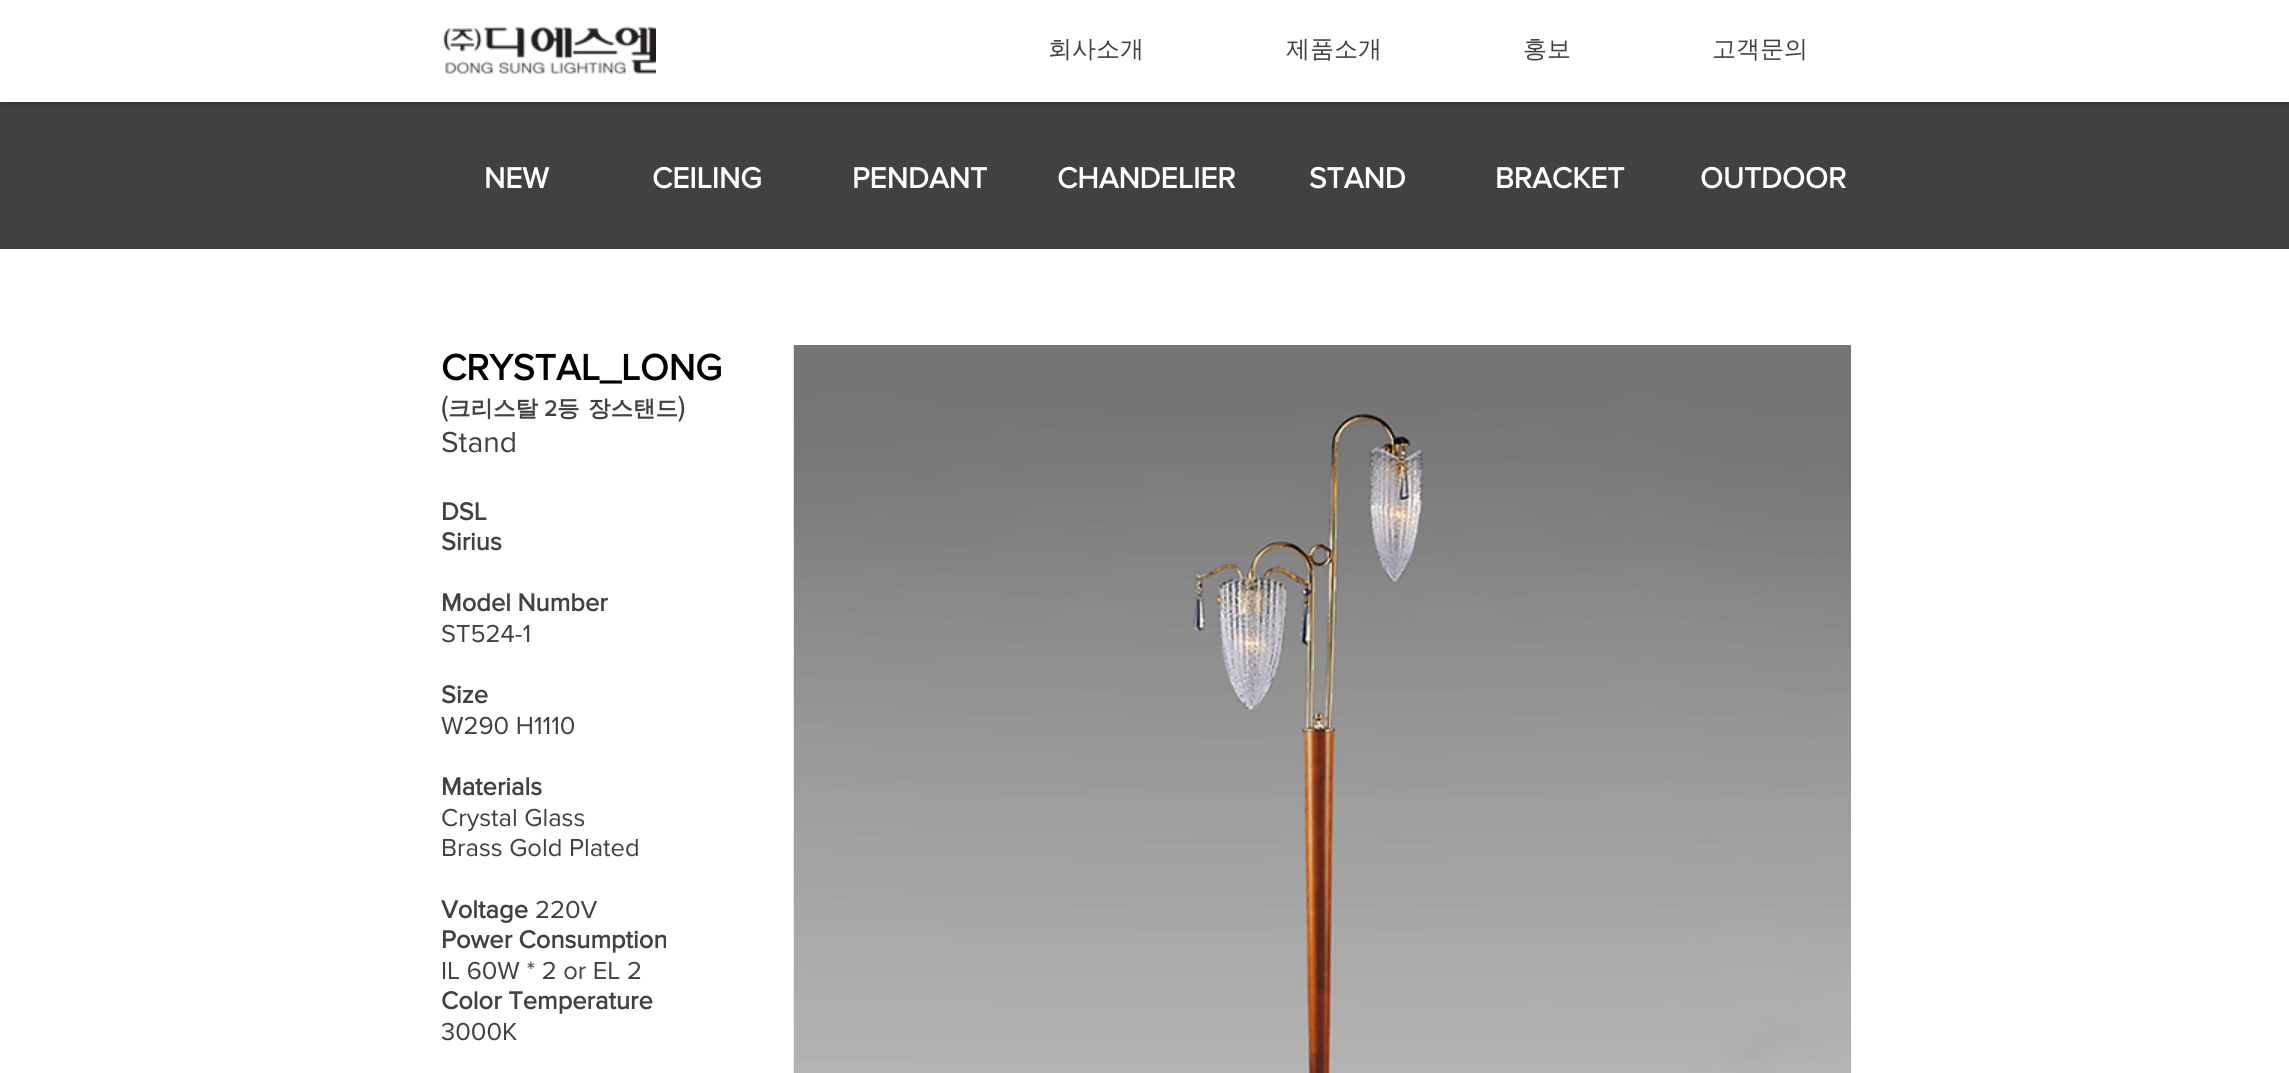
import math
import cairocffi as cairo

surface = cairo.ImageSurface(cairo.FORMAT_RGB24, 2289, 1073)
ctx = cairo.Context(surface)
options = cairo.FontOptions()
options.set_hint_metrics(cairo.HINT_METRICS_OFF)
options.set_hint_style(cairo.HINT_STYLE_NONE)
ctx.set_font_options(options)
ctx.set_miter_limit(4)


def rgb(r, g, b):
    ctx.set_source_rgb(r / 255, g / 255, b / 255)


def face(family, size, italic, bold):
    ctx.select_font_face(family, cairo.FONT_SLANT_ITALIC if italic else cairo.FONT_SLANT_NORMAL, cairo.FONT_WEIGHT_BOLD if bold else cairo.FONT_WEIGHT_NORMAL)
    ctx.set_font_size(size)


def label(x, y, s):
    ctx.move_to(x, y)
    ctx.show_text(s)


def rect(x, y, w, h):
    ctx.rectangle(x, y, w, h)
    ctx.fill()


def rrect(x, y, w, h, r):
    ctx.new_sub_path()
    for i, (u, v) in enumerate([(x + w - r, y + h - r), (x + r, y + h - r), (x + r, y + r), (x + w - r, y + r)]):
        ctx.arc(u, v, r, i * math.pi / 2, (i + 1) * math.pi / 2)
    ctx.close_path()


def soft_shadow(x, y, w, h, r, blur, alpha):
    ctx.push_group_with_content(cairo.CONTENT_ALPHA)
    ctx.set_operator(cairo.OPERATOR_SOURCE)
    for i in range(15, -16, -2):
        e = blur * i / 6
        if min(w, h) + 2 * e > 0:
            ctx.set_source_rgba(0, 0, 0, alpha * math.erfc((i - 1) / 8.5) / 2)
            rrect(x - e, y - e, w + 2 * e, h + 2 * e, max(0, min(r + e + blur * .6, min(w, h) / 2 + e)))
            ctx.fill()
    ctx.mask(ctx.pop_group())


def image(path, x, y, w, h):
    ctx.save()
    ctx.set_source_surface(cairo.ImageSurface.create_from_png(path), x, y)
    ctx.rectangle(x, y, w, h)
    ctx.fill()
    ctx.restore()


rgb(255, 255, 255)
ctx.paint()
rgb(65, 65, 65)
rect(0, 102, 2289, 147)
rgb(0, 0, 0)
soft_shadow(0, -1, 2289, 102, 0, 3, 0.6)
rgb(255, 255, 255)
rect(0, 0, 2289, 102)
image('image0.png', 443, 26, 213, 48)
face('WenQuanYi Zen Hei Medium', 24, 0, 0)
rgb(65, 65, 65)
label(1048, 57, '회사소개')
label(1286, 57, '제품소개')
label(1523, 57, '홍보')
label(1712, 57, '고객문의')
face('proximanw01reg', 30, 0, 1)
rgb(255, 255, 255)
label(484, 188, 'NEW')
label(652, 188, 'CEILING')
label(852, 188, 'PENDANT')
label(1057, 188, 'CHANDELIER')
label(1309, 188, 'STAND')
label(1495, 188, 'BRACKET')
label(1700, 188, 'OUTDOOR')
face('proximanw01reg', 37.5, 0, 1)
rgb(0, 0, 0)
label(441, 380, 'CRYSTAL_LONG')
face('proximanw01reg', 30, 0, 0)
rgb(65, 65, 65)
label(441, 416, '(')
face('WenQuanYi Zen Hei', 22.5, 0, 1)
label(448, 416, '크리스탈')
face('proximanw01reg', 22.5, 0, 1)
label(544, 416, '2')
face('WenQuanYi Zen Hei', 22.5, 0, 1)
label(557, 416, '등')
label(588, 416, '장스탠드')
face('proximanw01reg', 30, 0, 0)
label(678, 416, ')')
label(441, 452, 'Stand')
face('proximanw01reg', 25.5, 0, 1)
label(441, 520, 'DSL')
label(441, 550, 'Sirius')
label(441, 611, 'Model Number')
face('proximanw01reg', 25.5, 0, 0)
label(441, 642, 'ST524-1')
face('proximanw01reg', 25.5, 0, 1)
label(441, 703, 'Size')
face('proximanw01reg', 25.5, 0, 0)
label(441, 734, 'W290 H1110')
face('proximanw01reg', 25.5, 0, 1)
label(441, 795, 'Materials')
face('proximanw01reg', 25.5, 0, 0)
label(441, 826, 'Crystal Glass')
label(441, 856, 'Brass Gold Plated')
face('proximanw01reg', 25.5, 0, 1)
label(441, 918, 'Voltage')
face('proximanw01reg', 25.5, 0, 0)
label(535, 918, '220V')
face('proximanw01reg', 25.5, 0, 1)
label(441, 948, 'Power Consumption')
face('proximanw01reg', 25.5, 0, 0)
label(441, 979, 'IL 60W * 2 or EL 2')
face('proximanw01reg', 25.5, 0, 1)
label(441, 1009, 'Color Temperature')
face('proximanw01reg', 25.5, 0, 0)
label(441, 1040, '3000K')
image('image1.png', 793, 345, 1058, 728)
surface.write_to_png('render.png')
